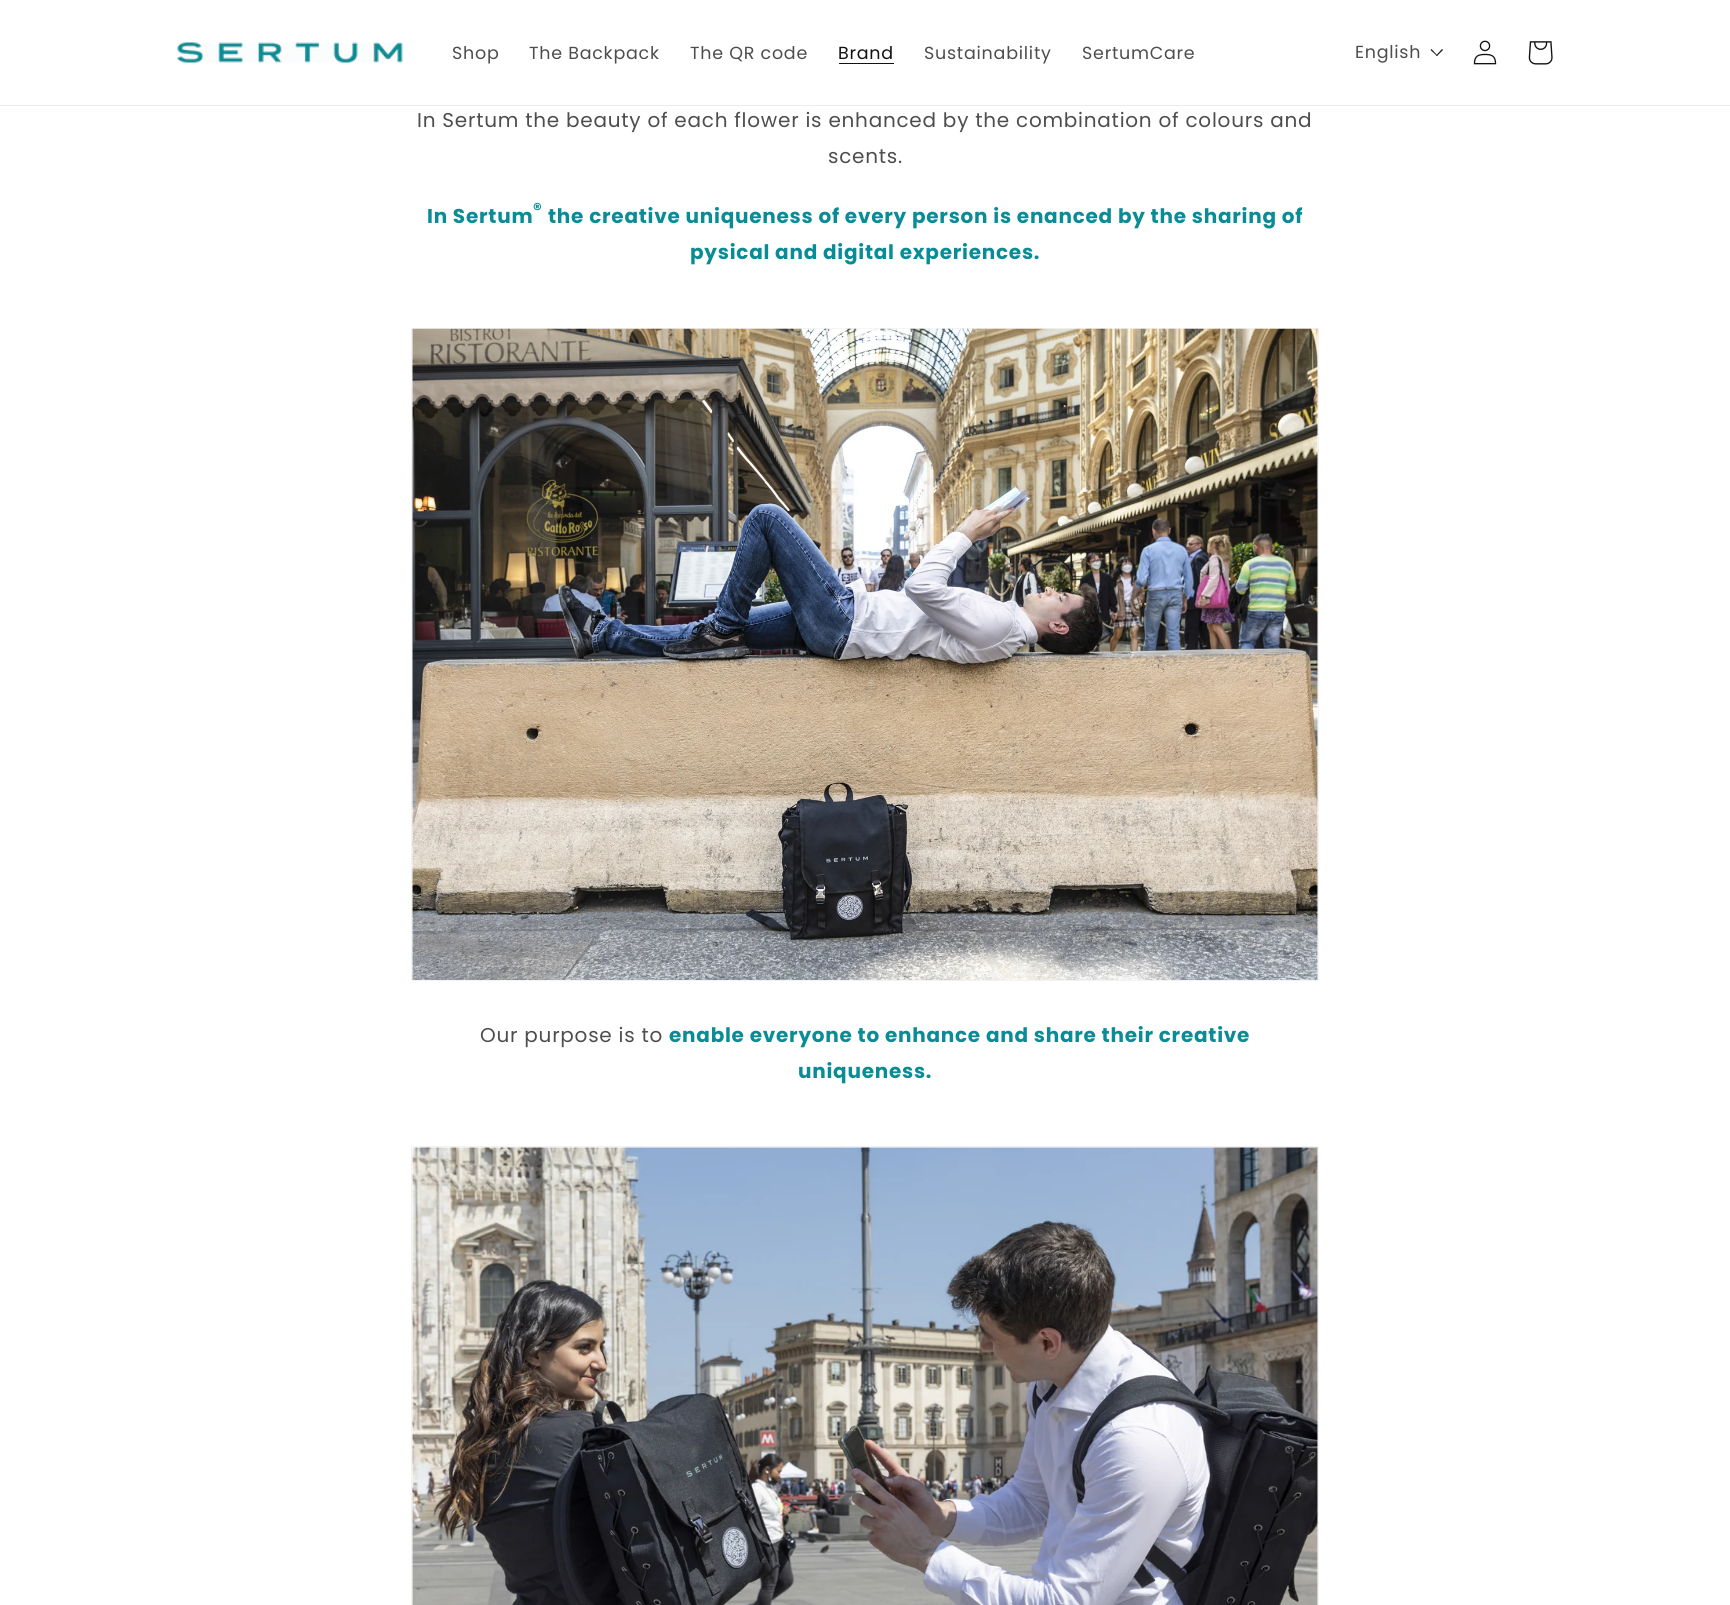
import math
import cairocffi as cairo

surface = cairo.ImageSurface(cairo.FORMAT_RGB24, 1730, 1605)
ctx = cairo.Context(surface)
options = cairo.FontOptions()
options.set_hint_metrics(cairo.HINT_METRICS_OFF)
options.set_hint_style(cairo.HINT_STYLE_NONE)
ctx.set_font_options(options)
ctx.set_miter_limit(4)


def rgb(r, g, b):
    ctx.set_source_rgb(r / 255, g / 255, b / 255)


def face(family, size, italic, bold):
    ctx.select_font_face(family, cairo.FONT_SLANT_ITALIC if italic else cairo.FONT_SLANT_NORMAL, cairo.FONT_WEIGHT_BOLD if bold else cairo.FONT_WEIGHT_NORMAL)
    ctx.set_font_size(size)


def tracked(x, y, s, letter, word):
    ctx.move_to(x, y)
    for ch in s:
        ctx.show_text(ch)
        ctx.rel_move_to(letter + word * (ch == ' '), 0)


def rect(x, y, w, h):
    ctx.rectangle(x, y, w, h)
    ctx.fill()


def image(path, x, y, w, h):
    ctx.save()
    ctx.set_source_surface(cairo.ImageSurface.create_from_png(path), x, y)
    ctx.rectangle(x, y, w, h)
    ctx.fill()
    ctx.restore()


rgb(255, 255, 255)
ctx.paint()
rgb(236, 236, 236)
rect(0, 105, 1730, 1)
image('image0.png', 177, 42, 226, 21)
face('Poppins', 17.5, 0, 0)
rgb(77, 77, 77)
tracked(452, 59, 'Shop', 0.75, 0)
tracked(529, 59, 'The Backpack', 0.75, 0)
tracked(690, 59, 'The QR code', 0.75, 0)
rgb(18, 18, 18)
tracked(838, 59, 'Brand', 0.75, 0)
rect(839, 63, 55, 1)
rgb(77, 77, 77)
tracked(924, 59, 'Sustainability', 0.75, 0)
tracked(1082, 59, 'SertumCare', 0.75, 0)
tracked(1355, 58, 'English', 0.75, 0)
rgb(26, 26, 26)
ctx.new_path()
ctx.move_to(1442, 49)
ctx.line_to(1443, 50)
ctx.line_to(1437, 56)
ctx.line_to(1436, 55.5)
ctx.close_path()
ctx.fill()
ctx.new_path()
ctx.move_to(1431.5, 49)
ctx.line_to(1437.5, 55.5)
ctx.line_to(1437, 56)
ctx.line_to(1430.5, 50)
ctx.close_path()
ctx.fill()
image('image1.png', 1473, 40, 24, 25)
image('image2.png', 1528, 41, 25, 24)
face('Poppins', 20, 0, 0)
rgb(77, 77, 77)
tracked(417, 127, 'In Sertum the beauty of each flower is enhanced by the combination of colours and', 0.75, 0)
tracked(828, 163, 'scents.', 0.75, 0)
face('Poppins', 20, 0, 1)
rgb(9, 140, 149)
tracked(427, 223, 'In Sertum', 0.75, 0)
face('Poppins', 17, 0, 1)
tracked(533, 215, '®', 0.75, 0)
face('Poppins', 20, 0, 1)
tracked(548, 223, 'the creative uniqueness of every person is enanced by the sharing of', 0.75, 0)
tracked(690, 259, 'pysical and digital experiences.', 0.75, 0)
ctx.rectangle(411.5, 328.5, 907, 652)
rgb(243, 243, 243)
ctx.set_line_width(1)
ctx.stroke()
image('image3.png', 412, 328, 906, 652)
face('Poppins', 20, 0, 0)
rgb(77, 77, 77)
tracked(480, 1042, 'Our purpose is to', 0.75, 0)
face('Poppins', 20, 0, 1)
rgb(9, 140, 149)
tracked(669, 1042, 'enable everyone to enhance and share their creative', 0.75, 0)
tracked(798, 1078, 'uniqueness.', 0.75, 0)
ctx.rectangle(411.5, 1146.5, 907, 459)
rgb(243, 243, 243)
ctx.stroke()
image('image4.png', 412, 1147, 906, 458)
surface.write_to_png('render.png')
